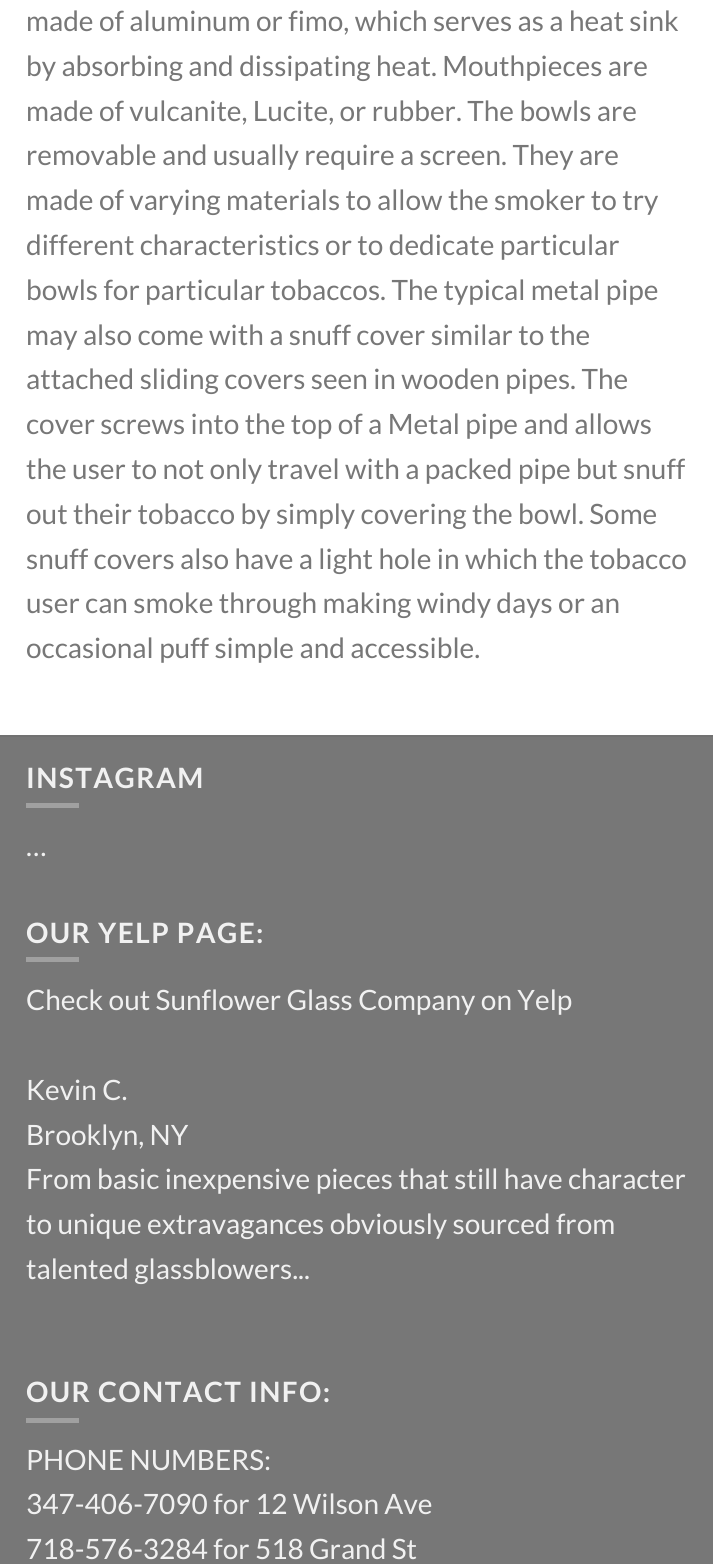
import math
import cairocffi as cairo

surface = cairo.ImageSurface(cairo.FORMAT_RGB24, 713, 1564)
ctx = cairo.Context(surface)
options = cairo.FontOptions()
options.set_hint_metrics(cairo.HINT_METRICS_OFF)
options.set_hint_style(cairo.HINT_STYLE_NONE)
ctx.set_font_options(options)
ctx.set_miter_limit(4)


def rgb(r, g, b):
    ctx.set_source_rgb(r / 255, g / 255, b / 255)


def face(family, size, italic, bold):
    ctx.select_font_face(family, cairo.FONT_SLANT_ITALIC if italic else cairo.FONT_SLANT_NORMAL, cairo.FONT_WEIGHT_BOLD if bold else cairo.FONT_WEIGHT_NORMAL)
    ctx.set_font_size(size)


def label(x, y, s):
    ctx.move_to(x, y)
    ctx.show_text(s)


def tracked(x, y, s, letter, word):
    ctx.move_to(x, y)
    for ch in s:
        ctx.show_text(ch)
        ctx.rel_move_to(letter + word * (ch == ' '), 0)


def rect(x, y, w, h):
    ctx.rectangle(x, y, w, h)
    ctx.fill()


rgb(255, 255, 255)
ctx.paint()
face('Lato', 28, 0, 0)
rgb(119, 119, 119)
label(26, 31, 'made of aluminum or fimo, which serves as a heat sink')
label(26, 76, 'by absorbing and dissipating heat. Mouthpieces are')
label(26, 121, 'made of vulcanite, Lucite, or rubber. The bowls are')
label(26, 165, 'removable and usually require a screen. They are')
label(26, 210, 'made of varying materials to allow the smoker to try')
label(26, 255, 'different characteristics or to dedicate particular')
label(26, 300, 'bowls for particular tobaccos. The typical metal pipe')
label(26, 345, 'may also come with a snuff cover similar to the')
label(26, 389, 'attached sliding covers seen in wooden pipes. The')
label(26, 434, 'cover screws into the top of a Metal pipe and allows')
label(26, 479, 'the user to not only travel with a packed pipe but snuff')
label(26, 524, 'out their tobacco by simply covering the bowl. Some')
label(26, 569, 'snuff covers also have a light hole in which the tobacco')
label(26, 613, 'user can smoke through making windy days or an')
label(26, 658, 'occasional puff simple and accessible.')
rect(0, 737, 713, 827)
rgb(113, 113, 113)
rect(0, 735, 713, 2)
face('Lato', 28, 0, 1)
rgb(241, 241, 241)
tracked(26, 788, 'INSTAGRAM', 1.4, 0)
rgb(160, 160, 160)
rect(26, 803, 53, 5)
face('Lato', 28, 0, 0)
rgb(241, 241, 241)
label(26, 856, '…')
face('Lato', 28, 0, 1)
tracked(26, 943, 'OUR YELP PAGE:', 1.4, 0)
rgb(160, 160, 160)
rect(26, 957, 53, 5)
face('Lato', 28, 0, 0)
rgb(241, 241, 241)
label(26, 1010, 'Check out Sunflower Glass Company on Yelp')
label(26, 1100, 'Kevin C.')
label(26, 1145, 'Brooklyn, NY')
label(26, 1189, 'From basic inexpensive pieces that still have character')
label(26, 1234, 'to unique extravagances obviously sourced from')
label(26, 1279, 'talented glassblowers...')
face('Lato', 28, 0, 1)
tracked(26, 1402, 'OUR CONTACT INFO:', 1.4, 0)
rgb(160, 160, 160)
rect(26, 1418, 53, 5)
face('Lato', 28, 0, 0)
rgb(241, 241, 241)
label(26, 1470, 'PHONE NUMBERS:')
label(26, 1514, '347-406-7090 for 12 Wilson Ave')
label(26, 1559, '718-576-3284 for 518 Grand St')
surface.write_to_png('render.png')
